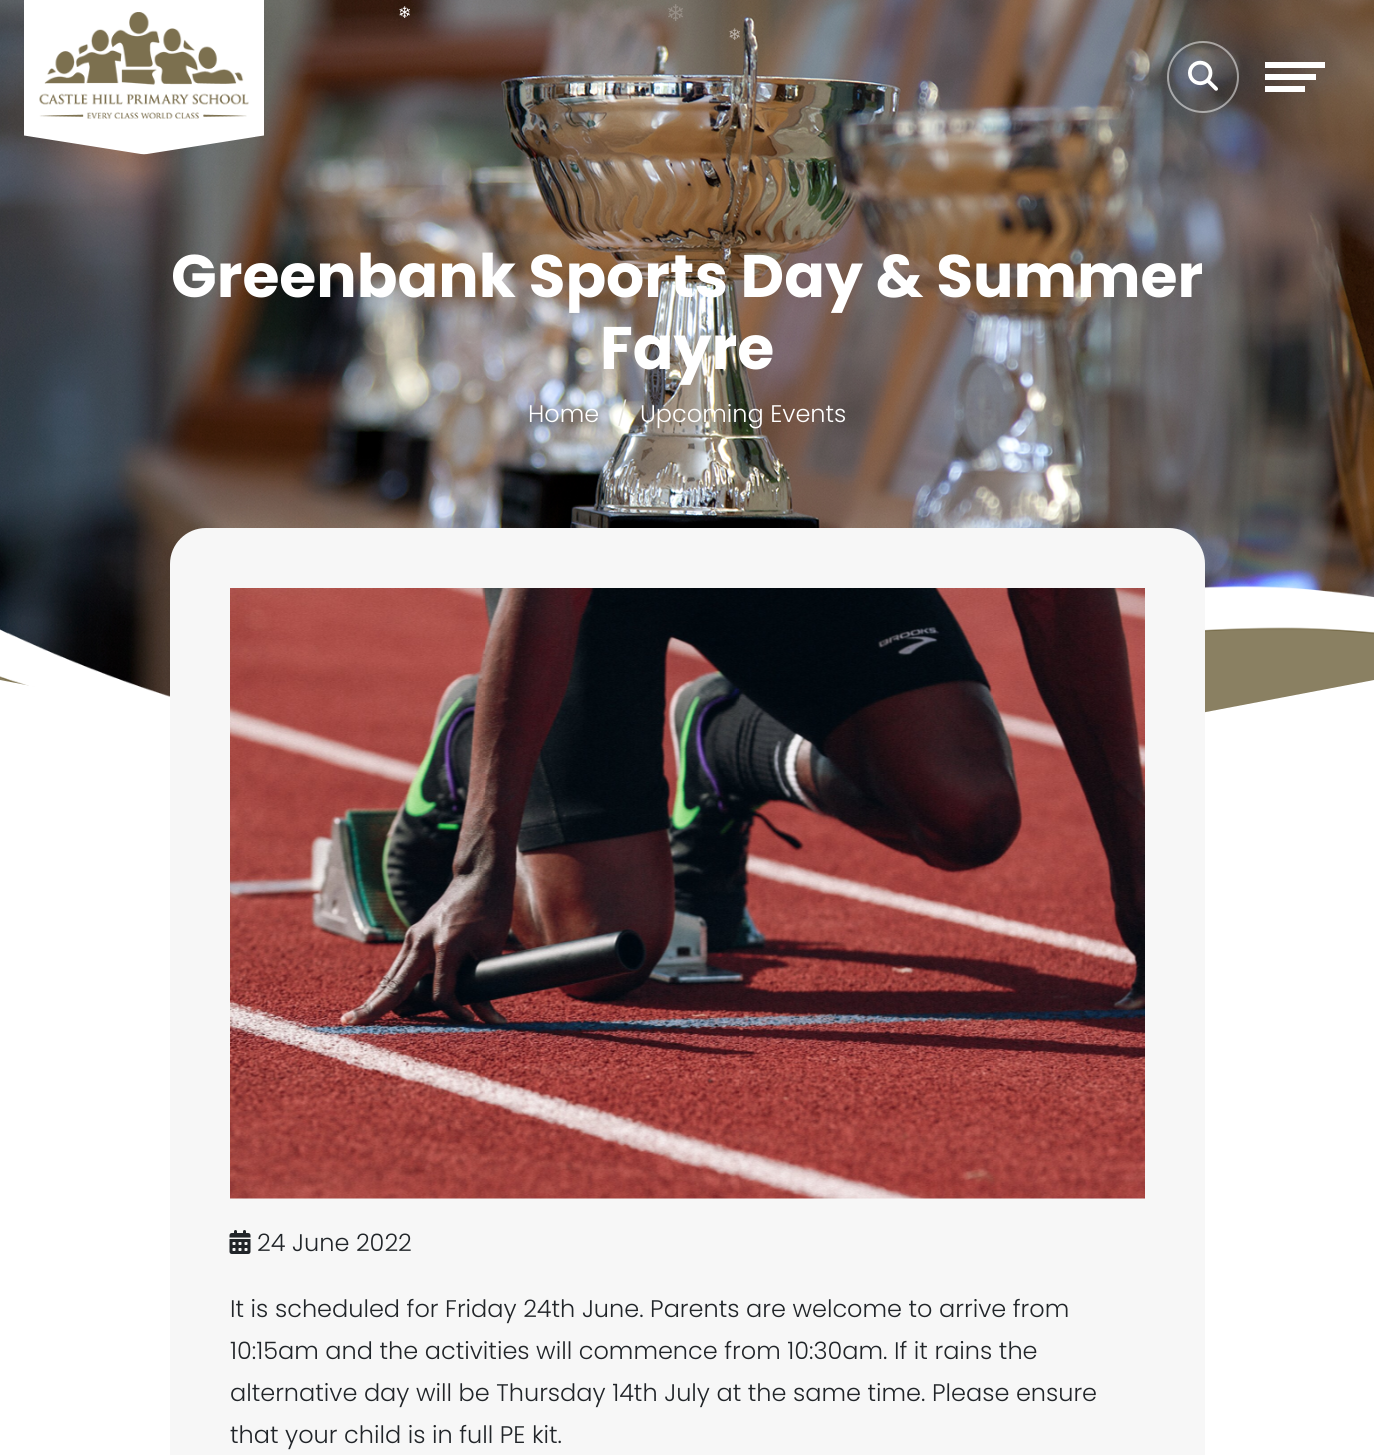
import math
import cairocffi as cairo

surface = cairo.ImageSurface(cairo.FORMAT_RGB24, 1374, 1455)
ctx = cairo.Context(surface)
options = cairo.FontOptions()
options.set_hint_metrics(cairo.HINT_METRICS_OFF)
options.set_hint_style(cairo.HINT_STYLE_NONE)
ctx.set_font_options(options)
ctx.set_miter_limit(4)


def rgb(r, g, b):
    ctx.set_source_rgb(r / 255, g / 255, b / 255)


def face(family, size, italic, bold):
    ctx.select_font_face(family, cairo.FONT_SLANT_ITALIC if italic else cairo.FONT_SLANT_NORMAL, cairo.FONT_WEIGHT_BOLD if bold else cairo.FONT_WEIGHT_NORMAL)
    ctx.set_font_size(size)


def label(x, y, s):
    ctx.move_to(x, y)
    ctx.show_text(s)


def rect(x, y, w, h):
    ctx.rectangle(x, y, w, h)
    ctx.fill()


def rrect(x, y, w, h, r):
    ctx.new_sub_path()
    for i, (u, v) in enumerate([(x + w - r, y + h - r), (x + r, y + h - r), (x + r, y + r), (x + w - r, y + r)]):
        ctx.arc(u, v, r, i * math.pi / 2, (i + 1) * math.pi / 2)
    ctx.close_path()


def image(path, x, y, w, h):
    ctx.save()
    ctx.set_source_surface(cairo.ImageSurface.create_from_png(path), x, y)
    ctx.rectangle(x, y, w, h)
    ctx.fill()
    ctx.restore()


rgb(255, 255, 255)
ctx.paint()
image('image3.png', 0, 0, 1374, 713)
face('DejaVu Sans', 16, 0, 0)
rgb(255, 255, 255)
label(398, 18, '❄')
face('DejaVu Sans', 23, 0, 0)
rgb(149, 141, 133)
label(666, 21, '❄')
face('DejaVu Sans', 16, 0, 0)
rgb(186, 178, 170)
label(728, 40, '❄')
image('image0.png', 24, 0, 240, 155)
image('image1.png', 39, 12, 210, 107)
ctx.arc(1203, 77, 35, 0, 2 * math.pi)
ctx.set_source_rgba(1, 1, 1, 0.5)
ctx.stroke()
image('image2.png', 1188, 60, 30, 31)
rgb(255, 255, 255)
rect(1265, 62, 60, 6)
rect(1265, 74, 51, 6)
rect(1265, 86, 40, 6)
face('Poppins', 60, 0, 1)
label(171, 297, 'Greenbank Sports Day & Summer')
label(600, 369, 'Fayre')
face('Poppins Light', 24, 0, 0)
label(528, 422, 'Home')
rgb(232, 231, 223)
label(617, 422, '/')
rgb(255, 255, 255)
label(640, 422, 'Upcoming Events')
ctx.new_path()
ctx.move_to(686, 811)
ctx.line_to(0, 680)
ctx.line_to(0, 817)
ctx.line_to(1374, 817)
ctx.line_to(1374, 680)
ctx.close_path()
ctx.fill()
rgb(247, 247, 247)
rrect(170, 528, 1035, 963, 36)
ctx.fill()
image('image4.png', 230, 588, 915, 611)
image('image5.png', 229, 1230, 22, 24)
rgb(33, 37, 41)
label(257, 1251, '24 June 2022')
label(230, 1317, 'It is scheduled for Friday 24th June. Parents are welcome to arrive from')
label(230, 1359, '10:15am and the activities will commence from 10:30am. If it rains the')
label(230, 1401, 'alternative day will be Thursday 14th July at the same time. Please ensure')
label(230, 1443, 'that your child is in full PE kit.')
surface.write_to_png('render.png')
